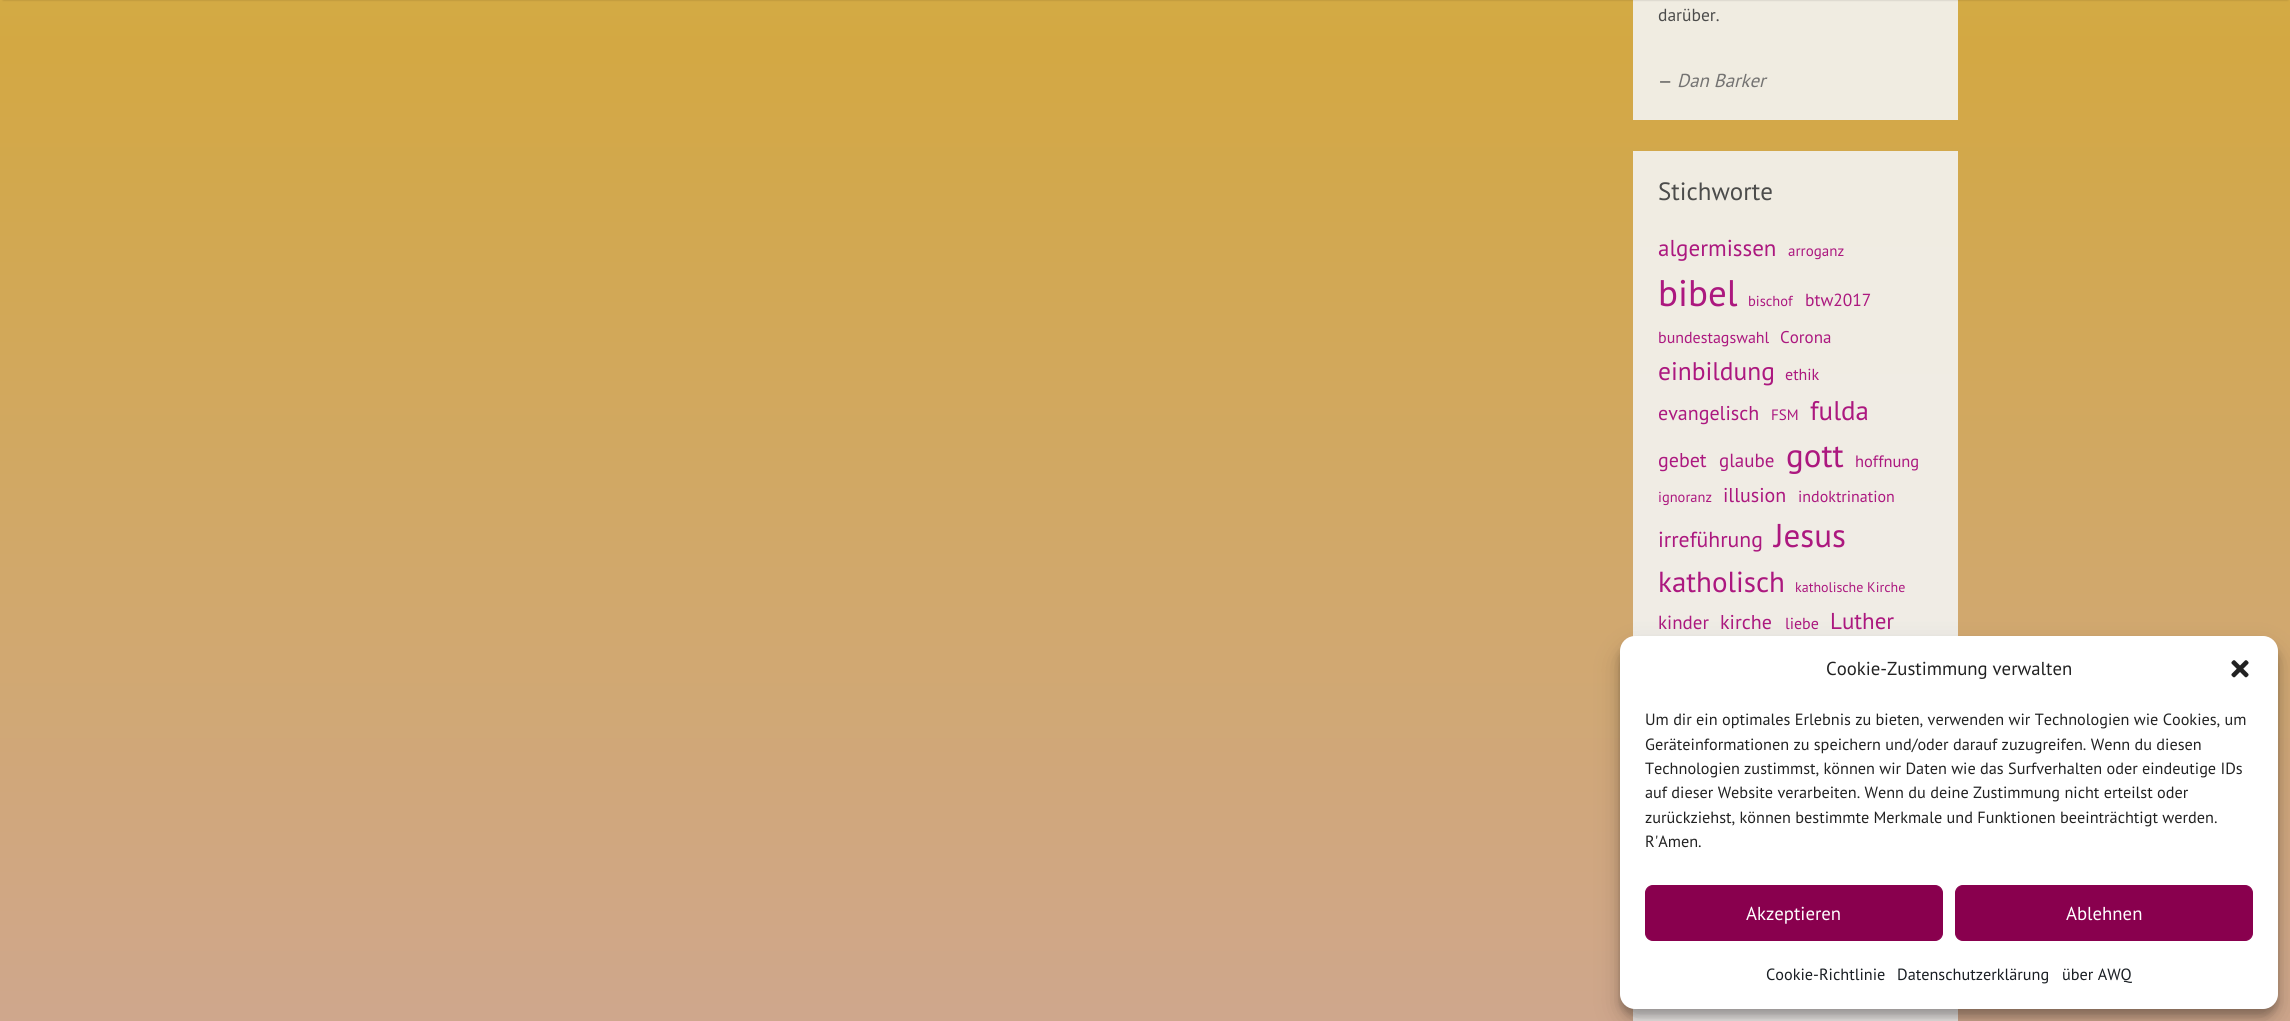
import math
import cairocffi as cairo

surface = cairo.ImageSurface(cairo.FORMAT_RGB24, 2290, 1021)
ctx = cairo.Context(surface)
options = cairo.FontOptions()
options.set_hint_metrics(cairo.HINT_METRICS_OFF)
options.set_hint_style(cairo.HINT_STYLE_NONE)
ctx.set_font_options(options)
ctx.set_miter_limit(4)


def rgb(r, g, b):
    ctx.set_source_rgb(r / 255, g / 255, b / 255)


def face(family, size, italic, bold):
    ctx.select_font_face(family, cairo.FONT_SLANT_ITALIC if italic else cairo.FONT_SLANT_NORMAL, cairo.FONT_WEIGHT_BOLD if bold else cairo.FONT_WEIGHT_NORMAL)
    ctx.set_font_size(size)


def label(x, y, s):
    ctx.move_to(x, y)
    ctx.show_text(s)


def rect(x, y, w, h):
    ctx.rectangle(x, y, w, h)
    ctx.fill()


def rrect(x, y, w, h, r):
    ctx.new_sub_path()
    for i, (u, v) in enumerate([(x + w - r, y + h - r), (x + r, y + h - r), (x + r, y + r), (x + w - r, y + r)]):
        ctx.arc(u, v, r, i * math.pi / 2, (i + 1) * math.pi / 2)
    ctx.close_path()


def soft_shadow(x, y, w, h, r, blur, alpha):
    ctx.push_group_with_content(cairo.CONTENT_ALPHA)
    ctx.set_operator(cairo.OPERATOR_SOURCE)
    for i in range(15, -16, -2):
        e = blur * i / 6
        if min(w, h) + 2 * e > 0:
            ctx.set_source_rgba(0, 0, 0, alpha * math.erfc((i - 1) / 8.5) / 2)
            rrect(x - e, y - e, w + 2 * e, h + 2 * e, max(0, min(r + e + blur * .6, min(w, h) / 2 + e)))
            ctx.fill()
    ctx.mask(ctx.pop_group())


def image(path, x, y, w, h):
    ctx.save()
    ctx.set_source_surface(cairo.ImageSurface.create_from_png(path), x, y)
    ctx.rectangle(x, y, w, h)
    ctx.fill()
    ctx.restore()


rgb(255, 255, 255)
ctx.paint()
gradient = cairo.LinearGradient(1145, -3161, 1145, 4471)
gradient.add_color_stop_rgba(0, 0.667, 0.588, 0.71, 1)
gradient.add_color_stop_rgba(0.05, 0.741, 0.835, 0.929, 1)
gradient.add_color_stop_rgba(0.15, 0.812, 0.976, 0.447, 1)
gradient.add_color_stop_rgba(0.3, 0.878, 0.843, 0.341, 1)
gradient.add_color_stop_rgba(0.42, 0.827, 0.659, 0.263, 1)
gradient.add_color_stop_rgba(0.59, 0.808, 0.655, 0.647, 1)
gradient.add_color_stop_rgba(0.77, 0.769, 0.576, 0.698, 1)
gradient.add_color_stop_rgba(1, 0.376, 0.392, 0.459, 1)
ctx.set_source(gradient)
rect(0, 0, 2290, 1021)
gradient = cairo.LinearGradient(1145, -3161, 1145, 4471)
gradient.add_color_stop_rgba(0, 0.925, 0.918, 0.929, 1)
gradient.add_color_stop_rgba(0.05, 0.933, 0.941, 0.949, 1)
gradient.add_color_stop_rgba(0.15, 0.937, 0.957, 0.902, 1)
gradient.add_color_stop_rgba(0.3, 0.945, 0.941, 0.89, 1)
gradient.add_color_stop_rgba(0.42, 0.941, 0.925, 0.882, 1)
gradient.add_color_stop_rgba(0.59, 0.937, 0.922, 0.922, 1)
gradient.add_color_stop_rgba(0.77, 0.933, 0.914, 0.929, 1)
gradient.add_color_stop_rgba(1, 0.894, 0.898, 0.902, 1)
ctx.set_source(gradient)
rect(1633, 1008, 325, 13)
rect(1633, 206, 325, 431)
rect(1633, 151, 325, 55)
rect(1633, 0, 325, 120)
rgb(0, 0, 0)
soft_shadow(3, -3, 2285, 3, 0, 1, 0.2)
face('PT Sans', 17.5, 0, 0)
rgb(76, 76, 75)
label(1658, 21, 'darüber.')
label(1658, 87, '—')
face('PT Sans', 18.75, 1, 0)
rgb(116, 115, 114)
label(1677, 87, 'Dan Barker')
face('PT Sans', 25, 0, 0)
rgb(76, 76, 75)
label(1658, 200, 'Stichworte')
face('PT Sans', 23, 0, 0)
rgb(172, 24, 127)
label(1658, 256, 'algermissen')
face('PT Sans', 15, 0, 0)
label(1788, 256, 'arroganz')
face('PT Sans', 37, 0, 0)
label(1658, 306, 'bibel')
face('PT Sans', 14.5, 0, 0)
label(1748, 306, 'bischof')
face('PT Sans', 17.5, 0, 0)
label(1805, 306, 'btw2017')
face('PT Sans', 16, 0, 0)
label(1658, 343, 'bundestagswahl')
face('PT Sans', 17, 0, 0)
label(1780, 343, 'Corona')
face('PT Sans', 25.5, 0, 0)
label(1658, 380, 'einbildung')
face('PT Sans', 16, 0, 0)
label(1785, 380, 'ethik')
face('PT Sans', 20, 0, 0)
label(1658, 420, 'evangelisch')
face('PT Sans', 15, 0, 0)
label(1771, 420, 'FSM')
face('PT Sans', 27, 0, 0)
label(1810, 420, 'fulda')
face('PT Sans', 20, 0, 0)
label(1658, 467, 'gebet')
face('PT Sans', 19, 0, 0)
label(1719, 467, 'glaube')
face('PT Sans', 33, 0, 0)
label(1786, 467, 'gott')
face('PT Sans', 16.5, 0, 0)
label(1855, 467, 'hoffnung')
face('PT Sans', 14.5, 0, 0)
label(1658, 502, 'ignoranz')
face('PT Sans', 20, 0, 0)
label(1723, 502, 'illusion')
face('PT Sans', 16, 0, 0)
label(1798, 502, 'indoktrination')
face('PT Sans', 21.75, 0, 0)
label(1658, 547, 'irreführung')
face('PT Sans', 33, 0, 0)
label(1774, 547, 'Jesus')
face('PT Sans', 29, 0, 0)
label(1658, 592, 'katholisch')
face('PT Sans', 14, 0, 0)
label(1795, 592, 'katholische Kirche')
face('PT Sans', 19, 0, 0)
label(1658, 629, 'kinder')
face('PT Sans', 20, 0, 0)
label(1720, 629, 'kirche')
face('PT Sans', 16, 0, 0)
label(1785, 629, 'liebe')
face('PT Sans', 23, 0, 0)
label(1830, 629, 'Luther')
rgb(0, 0, 0)
soft_shadow(1620, 644, 658, 372, 15, 4, 0.23)
soft_shadow(1620, 649, 658, 372, 15, 12.5, 0.19)
rgb(255, 255, 255)
rrect(1620, 636, 658, 373, 15)
ctx.fill()
face('PT Sans', 18.75, 0, 0)
rgb(34, 34, 34)
label(1826, 675, 'Cookie-Zustimmung verwalten')
image('image0.png', 2231, 660, 18, 18)
face('PT Sans', 16.25, 0, 0)
label(1645, 725, 'Um dir ein optimales Erlebnis zu bieten, verwenden wir Technologien wie Cookies, um')
label(1645, 750, 'Geräteinformationen zu speichern und/oder darauf zuzugreifen. Wenn du diesen')
label(1645, 774, 'Technologien zustimmst, können wir Daten wie das Surfverhalten oder eindeutige IDs')
label(1645, 798, 'auf dieser Website verarbeiten. Wenn du deine Zustimmung nicht erteilst oder')
label(1645, 823, 'zurückziehst, können bestimmte Merkmale und Funktionen beeinträchtigt werden.')
label(1645, 847, 'R\'Amen.')
rgb(137, 0, 78)
rrect(1645.5, 885.5, 297, 55, 7.5)
ctx.fill_preserve()
ctx.set_line_width(1)
ctx.stroke()
face('PT Sans', 18.75, 0, 0)
rgb(255, 255, 255)
label(1746, 920, 'Akzeptieren')
rgb(137, 0, 78)
rrect(1955.5, 885.5, 297, 55, 7.5)
ctx.fill_preserve()
ctx.stroke()
rgb(255, 255, 255)
label(2066, 920, 'Ablehnen')
face('PT Sans', 16.25, 0, 0)
rgb(25, 30, 35)
label(1766, 980, 'Cookie-Richtlinie')
label(1897, 980, 'Datenschutzerklärung')
label(2062, 980, 'über AWQ')
surface.write_to_png('render.png')
